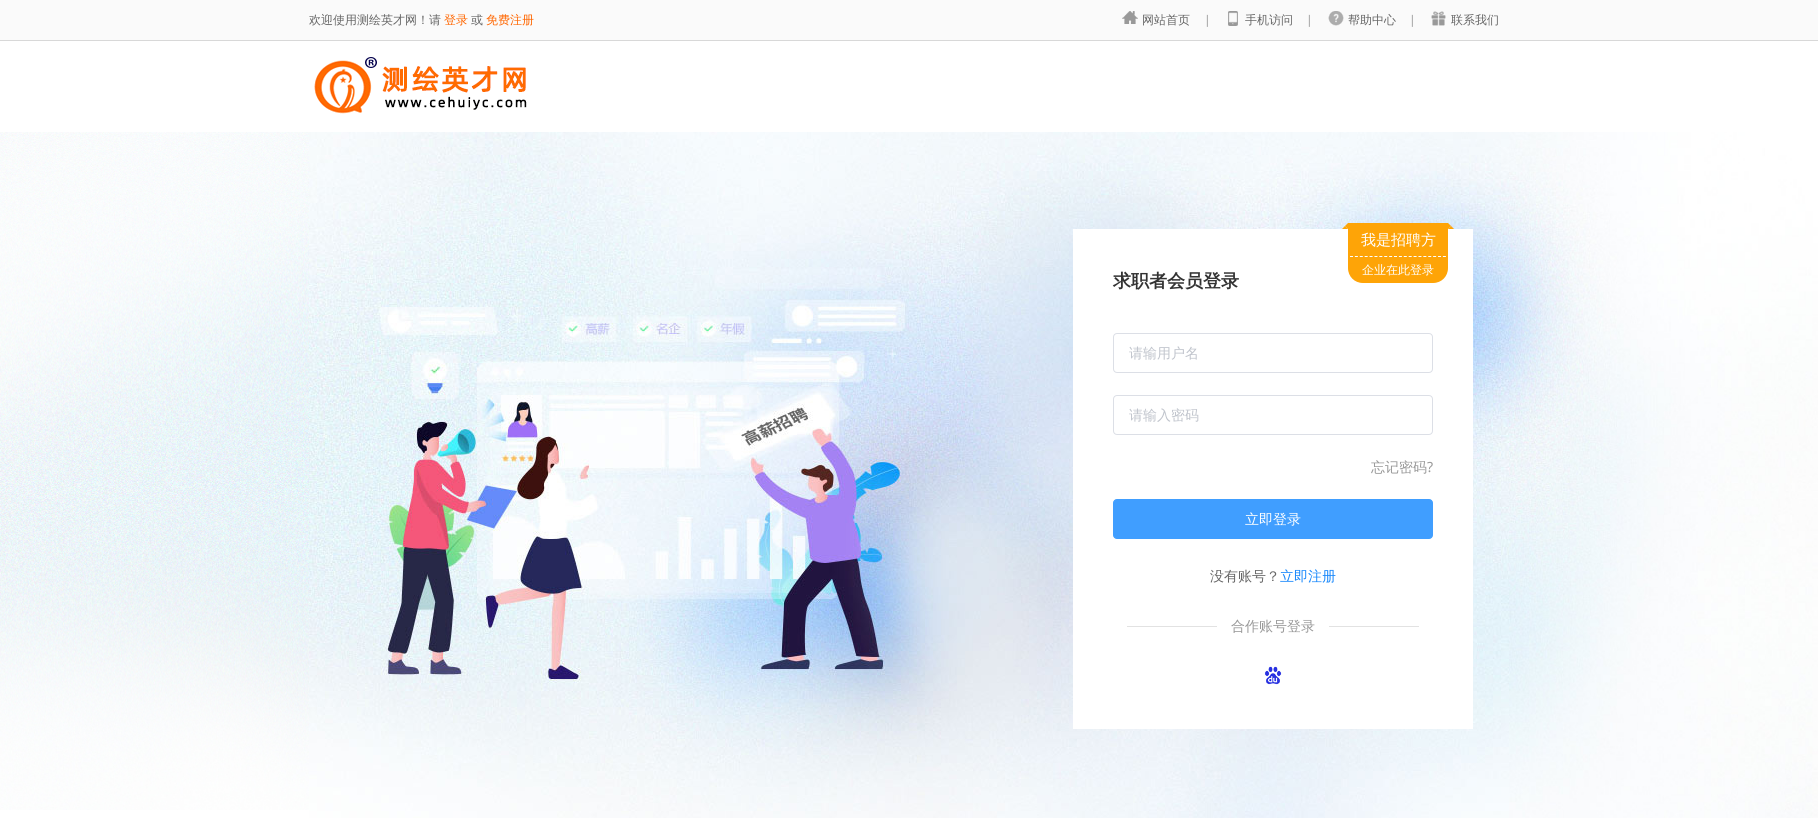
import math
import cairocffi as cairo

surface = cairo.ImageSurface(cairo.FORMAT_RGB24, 1818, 818)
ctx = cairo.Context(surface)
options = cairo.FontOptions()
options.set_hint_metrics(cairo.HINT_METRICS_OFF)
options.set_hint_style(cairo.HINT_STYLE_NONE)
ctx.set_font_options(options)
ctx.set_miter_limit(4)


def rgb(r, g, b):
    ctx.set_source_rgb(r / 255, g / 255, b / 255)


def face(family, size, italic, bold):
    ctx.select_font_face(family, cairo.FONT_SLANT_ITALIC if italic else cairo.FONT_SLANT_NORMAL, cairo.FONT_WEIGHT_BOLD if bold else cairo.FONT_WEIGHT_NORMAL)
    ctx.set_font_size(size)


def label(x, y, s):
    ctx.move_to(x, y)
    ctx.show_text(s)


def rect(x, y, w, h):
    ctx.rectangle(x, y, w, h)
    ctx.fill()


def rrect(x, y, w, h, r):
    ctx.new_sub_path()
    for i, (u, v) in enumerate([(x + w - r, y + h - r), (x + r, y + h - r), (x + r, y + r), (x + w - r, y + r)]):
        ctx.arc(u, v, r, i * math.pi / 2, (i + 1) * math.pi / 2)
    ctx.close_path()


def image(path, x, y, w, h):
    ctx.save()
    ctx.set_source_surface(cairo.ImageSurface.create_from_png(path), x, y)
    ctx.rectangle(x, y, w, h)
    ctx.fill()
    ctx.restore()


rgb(255, 255, 255)
ctx.paint()
rgb(250, 250, 250)
rect(0, 0, 1818, 40)
face('WenQuanYi Zen Hei Medium', 12, 0, 0)
rgb(102, 102, 102)
label(309, 24, '欢迎使用测绘英才网！请')
rgb(255, 102, 0)
label(444, 24, '登录')
rgb(102, 102, 102)
label(471, 24, '或')
rgb(255, 102, 0)
label(486, 24, '免费注册')
image('image0.png', 1122, 11, 16, 13)
rgb(102, 102, 102)
label(1142, 24, '网站首页')
face('Noto Sans', 12, 0, 0)
rgb(153, 153, 153)
label(1204, 24, '|')
image('image1.png', 1228, 11, 10, 15)
face('WenQuanYi Zen Hei Medium', 12, 0, 0)
rgb(102, 102, 102)
label(1245, 24, '手机访问')
face('Noto Sans', 12, 0, 0)
rgb(153, 153, 153)
label(1306, 24, '|')
image('image2.png', 1328, 11, 16, 15)
face('WenQuanYi Zen Hei Medium', 12, 0, 0)
rgb(102, 102, 102)
label(1348, 24, '帮助中心')
face('Noto Sans', 12, 0, 0)
rgb(153, 153, 153)
label(1409, 24, '|')
image('image3.png', 1431, 11, 15, 15)
face('WenQuanYi Zen Hei Medium', 12, 0, 0)
rgb(102, 102, 102)
label(1451, 24, '联系我们')
rgb(216, 216, 216)
rect(0, 40, 1818, 1)
image('image4.png', 314, 57, 213, 57)
image('image5.png', 0, 132, 309, 678)
image('image6.png', 309, 132, 1200, 686)
rgb(255, 255, 255)
rect(1073, 229, 400, 500)
rgb(254, 164, 7)
ctx.new_path()
ctx.move_to(1348, 223)
ctx.line_to(1448, 223)
ctx.line_to(1448, 268)
ctx.curve_to(1448, 276.5, 1441.5, 283, 1433, 283)
ctx.line_to(1363, 283)
ctx.curve_to(1354.5, 283, 1348, 276.5, 1348, 268)
ctx.close_path()
ctx.fill()
ctx.new_path()
ctx.move_to(1348, 223)
ctx.line_to(1348, 229)
ctx.line_to(1345, 226)
ctx.close_path()
ctx.fill()
ctx.new_path()
ctx.move_to(1348, 229)
ctx.line_to(1342, 229)
ctx.line_to(1345, 226)
ctx.close_path()
ctx.fill()
ctx.new_path()
ctx.move_to(1454, 229)
ctx.line_to(1448, 229)
ctx.line_to(1451, 226)
ctx.close_path()
ctx.fill()
ctx.new_path()
ctx.move_to(1448, 229)
ctx.line_to(1448, 223)
ctx.line_to(1451, 226)
ctx.close_path()
ctx.fill()
ctx.new_path()
ctx.move_to(1350, 256.5)
ctx.line_to(1446, 256.5)
rgb(255, 255, 255)
ctx.set_line_width(1)
ctx.set_dash([3, 1.89])
ctx.stroke()
face('WenQuanYi Zen Hei Medium', 15, 0, 0)
label(1361, 245, '我是招聘方')
face('WenQuanYi Zen Hei Medium', 12, 0, 0)
label(1362, 274, '企业在此登录')
face('WenQuanYi Zen Hei', 18, 0, 1)
rgb(51, 51, 51)
label(1113, 287, '求职者会员登录')
rrect(1113.5, 333.5, 319, 39, 3.5)
rgb(220, 223, 230)
ctx.set_dash([])
ctx.stroke()
face('WenQuanYi Zen Hei Medium', 14, 0, 0)
rgb(192, 196, 204)
label(1129, 358, '请输用户名')
rrect(1113.5, 395.5, 319, 39, 3.5)
rgb(220, 223, 230)
ctx.stroke()
rgb(192, 196, 204)
label(1129, 420, '请输入密码')
rgb(153, 153, 153)
label(1371, 472, '忘记密码')
face('Noto Sans', 14, 0, 0)
label(1427, 472, '?')
rgb(64, 158, 255)
rrect(1113.5, 499.5, 319, 39, 3.5)
ctx.fill_preserve()
ctx.stroke()
face('WenQuanYi Zen Hei Medium', 14, 0, 0)
rgb(255, 255, 255)
label(1245, 524, '立即登录')
rgb(102, 102, 102)
label(1210, 581, '没有账号？')
rgb(23, 135, 251)
label(1280, 581, '立即注册')
rgb(226, 226, 226)
rect(1127, 626, 90, 1)
rgb(153, 153, 153)
label(1231, 631, '合作账号登录')
rgb(226, 226, 226)
rect(1329, 626, 90, 1)
image('image7.png', 1264, 666, 18, 19)
image('image8.png', 1509, 132, 309, 686)
surface.write_to_png('render.png')
